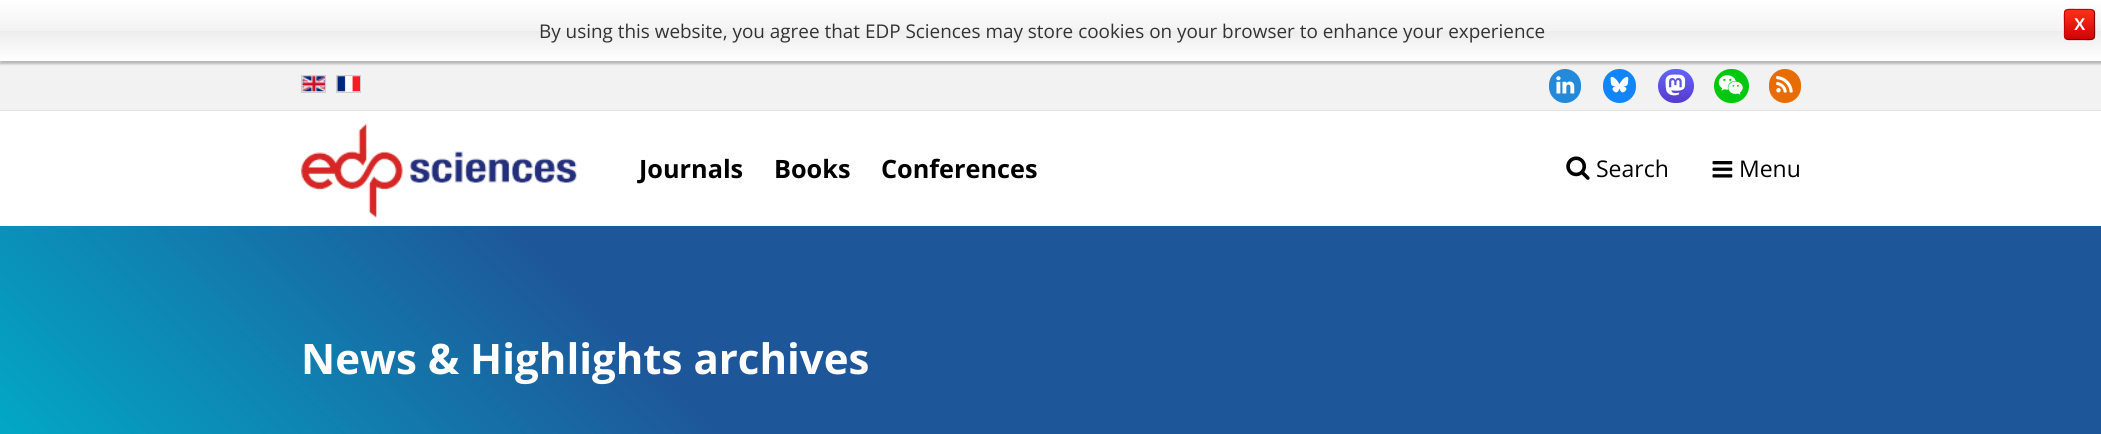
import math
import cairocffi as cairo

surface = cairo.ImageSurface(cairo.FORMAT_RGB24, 2101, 434)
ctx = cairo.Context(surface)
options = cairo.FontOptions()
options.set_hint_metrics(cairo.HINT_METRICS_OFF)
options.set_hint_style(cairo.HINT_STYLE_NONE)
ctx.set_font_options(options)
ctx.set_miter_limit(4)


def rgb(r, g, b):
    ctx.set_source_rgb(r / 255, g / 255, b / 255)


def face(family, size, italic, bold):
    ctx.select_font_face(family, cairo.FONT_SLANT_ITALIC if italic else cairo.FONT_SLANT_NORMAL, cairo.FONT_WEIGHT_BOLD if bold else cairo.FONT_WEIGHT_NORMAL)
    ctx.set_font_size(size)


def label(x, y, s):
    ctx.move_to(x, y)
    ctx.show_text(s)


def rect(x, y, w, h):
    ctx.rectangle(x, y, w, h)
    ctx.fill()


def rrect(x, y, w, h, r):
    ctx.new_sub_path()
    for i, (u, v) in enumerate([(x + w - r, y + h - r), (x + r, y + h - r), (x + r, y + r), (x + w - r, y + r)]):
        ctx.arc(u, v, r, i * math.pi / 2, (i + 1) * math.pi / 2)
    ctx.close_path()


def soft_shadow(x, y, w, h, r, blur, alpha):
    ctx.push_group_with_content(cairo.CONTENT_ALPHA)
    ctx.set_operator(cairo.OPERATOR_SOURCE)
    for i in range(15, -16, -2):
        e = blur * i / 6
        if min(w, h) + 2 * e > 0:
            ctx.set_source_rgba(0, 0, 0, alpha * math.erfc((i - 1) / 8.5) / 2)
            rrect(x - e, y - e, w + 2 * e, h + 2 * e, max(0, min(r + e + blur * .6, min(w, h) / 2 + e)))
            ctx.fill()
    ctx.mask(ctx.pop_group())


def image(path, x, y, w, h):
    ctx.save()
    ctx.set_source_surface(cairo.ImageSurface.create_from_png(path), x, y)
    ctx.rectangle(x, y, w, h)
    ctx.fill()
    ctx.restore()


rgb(255, 255, 255)
ctx.paint()
rgb(242, 242, 242)
rect(0, 61, 2101, 49)
rgb(127, 127, 127)
soft_shadow(0, 3, 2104, 61, 0, 1, 0.5)
gradient = cairo.LinearGradient(1057, 0, 1057, 61)
gradient.add_color_stop_rgba(0, 1, 1, 1, 1)
gradient.add_color_stop_rgba(0.5, 0.953, 0.953, 0.953, 1)
gradient.add_color_stop_rgba(0.51, 0.929, 0.929, 0.929, 1)
gradient.add_color_stop_rgba(1, 1, 1, 1, 1)
ctx.set_source(gradient)
rect(0, 1, 2101, 60)
face('Open Sans', 18.9, 0, 0)
rgb(51, 51, 51)
label(539, 38, 'By using this website, you agree that EDP Sciences may store cookies on your browser to enhance your experience')
ctx.save()
rrect(2064, 9, 31, 31, 4)
ctx.clip()
gradient = cairo.LinearGradient(2079, 10, 2079, 39)
gradient.add_color_stop_rgba(0, 1, 0.188, 0.098, 1)
gradient.add_color_stop_rgba(1, 0.812, 0.016, 0.016, 1)
ctx.set_source(gradient)
rect(2064, 10, 31, 29)
ctx.restore()
ctx.new_path()
ctx.move_to(2093.5, 10.5)
ctx.curve_to(2095, 12, 2094.5, 14.5, 2094.5, 16.5)
ctx.line_to(2094.5, 24.5)
ctx.curve_to(2094.5, 42, 2097, 39.5, 2079.5, 39.5)
ctx.line_to(2071.5, 39.5)
ctx.curve_to(2069.5, 39.5, 2067, 40, 2065.5, 38.5)
rgb(131, 0, 6)
ctx.set_line_width(1.2)
ctx.stroke()
ctx.new_path()
ctx.move_to(2065.5, 38.5)
ctx.curve_to(2064, 37, 2064.5, 34, 2064.5, 32.5)
ctx.line_to(2064.5, 24.5)
ctx.curve_to(2064.5, 7, 2062, 9.5, 2079.5, 9.5)
ctx.line_to(2087.5, 9.5)
ctx.curve_to(2089, 9.5, 2092, 9, 2093.5, 10.5)
rgb(196, 0, 9)
ctx.stroke()
face('Liberation Sans', 17, 0, 1)
rgb(255, 255, 255)
label(2074, 30, 'X')
rgb(226, 226, 226)
rect(0, 110, 2101, 1)
ctx.rectangle(301.5, 75.5, 24, 17)
rgb(204, 204, 204)
ctx.set_line_width(1)
ctx.stroke()
image('image0.png', 302, 76, 23, 16)
ctx.rectangle(336.5, 75.5, 24, 17)
ctx.stroke()
image('image1.png', 337, 76, 23, 16)
rgb(36, 137, 217)
rrect(1549, 69, 32, 34, 16)
ctx.fill()
image('image2.png', 1556, 76, 19, 18)
rgb(17, 133, 254)
rrect(1603, 69, 33, 34, 16.5)
ctx.fill()
image('image3.png', 1610, 76, 19, 17)
gradient = cairo.LinearGradient(1676, 69, 1676, 103)
gradient.add_color_stop_rgba(0, 0.388, 0.392, 1, 1)
gradient.add_color_stop_rgba(1, 0.337, 0.227, 0.8, 1)
ctx.set_source(gradient)
rrect(1658, 69, 36, 34, 17)
ctx.fill()
image('image4.png', 1665, 74, 21, 22)
rgb(0, 200, 15)
rrect(1714, 69, 35, 34, 17)
ctx.fill()
image('image5.png', 1718, 75, 25, 20)
rgb(231, 108, 4)
rrect(1769, 69, 32, 34, 16)
ctx.fill()
image('image6.png', 1776, 76, 17, 17)
image('image7.png', 301, 123, 276, 95)
face('Open Sans', 25.25, 0, 1)
rgb(0, 0, 0)
label(639, 178, 'Journals')
label(774, 178, 'Books')
label(881, 178, 'Conferences')
image('image8.png', 1566, 156, 24, 24)
face('Open Sans', 23, 0, 0)
label(1596, 177, 'Search')
image('image9.png', 1712, 161, 21, 17)
label(1739, 177, 'Menu')
gradient = cairo.LinearGradient(459, 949, 1642, -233)
gradient.add_color_stop_rgba(0, 0, 0.682, 0.788, 1)
gradient.add_color_stop_rgba(0.33, 0.118, 0.341, 0.6, 1)
ctx.set_source(gradient)
rect(0, 226, 2101, 208)
face('Open Sans', 42, 0, 1)
rgb(255, 255, 255)
label(301, 374, 'News & Highlights archives')
surface.write_to_png('render.png')
